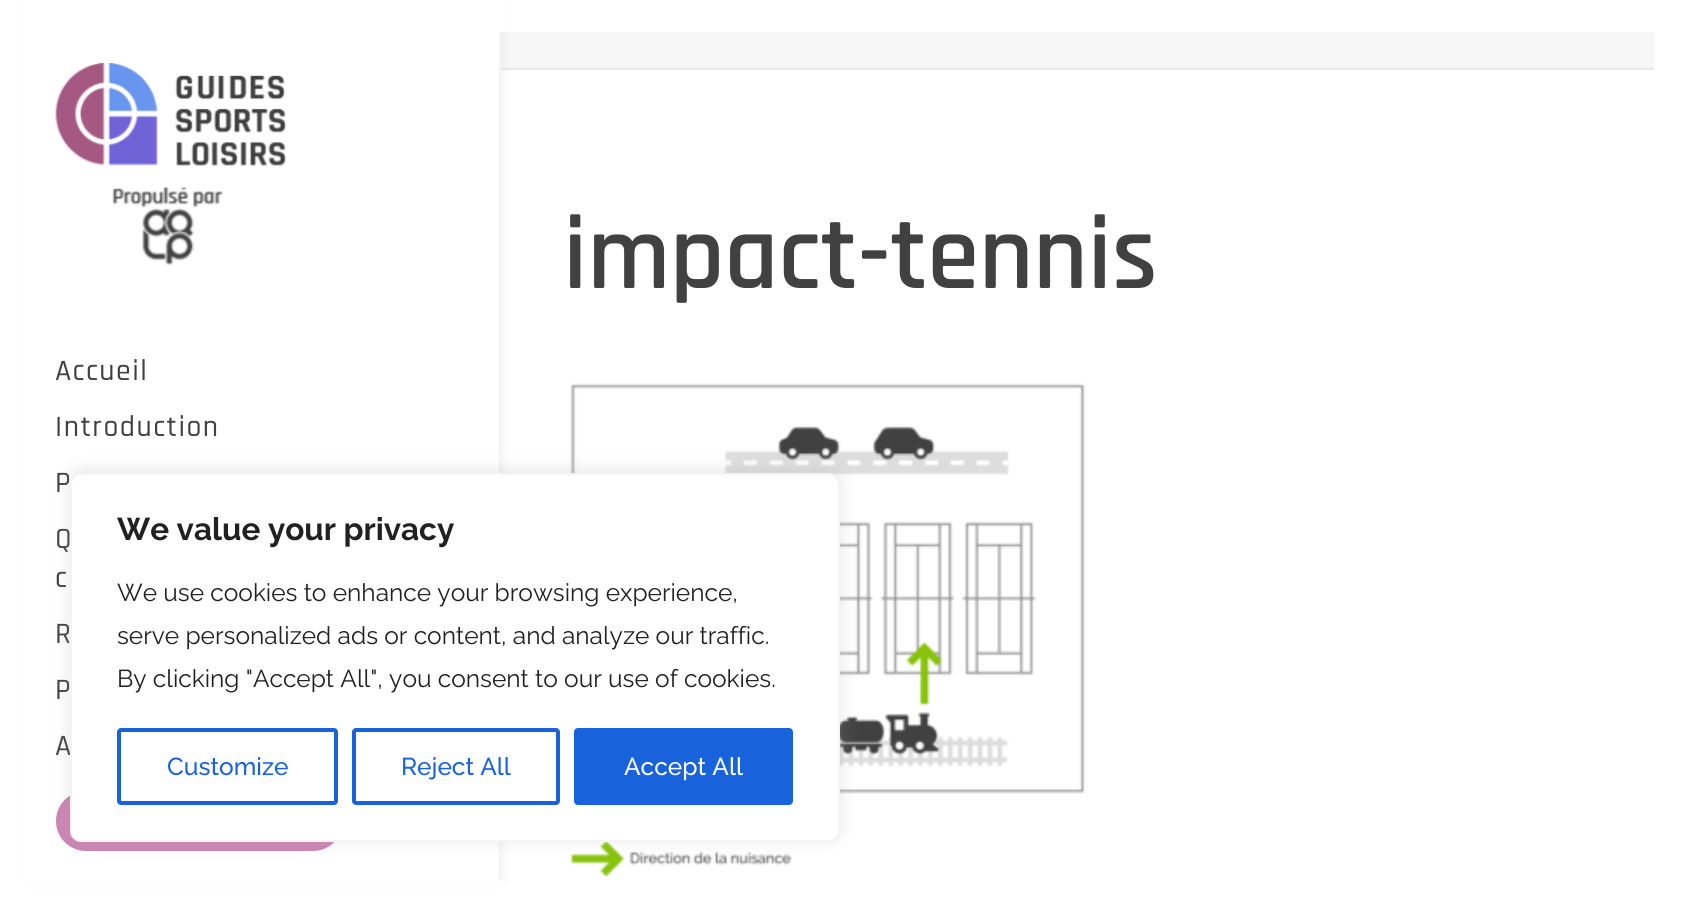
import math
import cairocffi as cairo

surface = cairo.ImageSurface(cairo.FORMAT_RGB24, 1684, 911)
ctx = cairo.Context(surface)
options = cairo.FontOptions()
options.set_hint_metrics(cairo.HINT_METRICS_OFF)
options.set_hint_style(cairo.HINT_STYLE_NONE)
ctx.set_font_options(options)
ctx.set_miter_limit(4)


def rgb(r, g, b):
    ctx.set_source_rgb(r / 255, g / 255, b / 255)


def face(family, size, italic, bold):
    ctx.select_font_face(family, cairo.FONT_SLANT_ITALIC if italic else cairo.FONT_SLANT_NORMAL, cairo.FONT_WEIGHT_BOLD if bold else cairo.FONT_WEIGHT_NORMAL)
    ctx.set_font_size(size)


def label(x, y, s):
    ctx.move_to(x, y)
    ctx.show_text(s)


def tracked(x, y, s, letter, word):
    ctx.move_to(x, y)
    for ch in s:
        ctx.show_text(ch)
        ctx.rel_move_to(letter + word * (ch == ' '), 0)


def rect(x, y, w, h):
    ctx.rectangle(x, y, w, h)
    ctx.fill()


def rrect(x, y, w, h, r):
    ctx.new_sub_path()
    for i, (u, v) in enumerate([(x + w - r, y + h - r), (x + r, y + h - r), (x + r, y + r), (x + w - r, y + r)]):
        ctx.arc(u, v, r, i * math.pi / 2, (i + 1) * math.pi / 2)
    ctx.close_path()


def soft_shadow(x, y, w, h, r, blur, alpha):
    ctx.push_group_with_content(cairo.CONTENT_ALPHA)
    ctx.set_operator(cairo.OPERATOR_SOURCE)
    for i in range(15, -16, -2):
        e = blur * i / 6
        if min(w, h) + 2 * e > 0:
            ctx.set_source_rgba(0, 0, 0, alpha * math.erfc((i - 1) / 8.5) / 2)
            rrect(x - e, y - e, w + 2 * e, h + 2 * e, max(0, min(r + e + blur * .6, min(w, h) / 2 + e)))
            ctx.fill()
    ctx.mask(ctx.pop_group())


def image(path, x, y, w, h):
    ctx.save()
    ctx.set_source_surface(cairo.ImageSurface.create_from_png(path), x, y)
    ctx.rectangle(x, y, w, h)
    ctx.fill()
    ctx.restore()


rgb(255, 255, 255)
ctx.paint()
rgb(247, 247, 247)
rect(501, 32, 1153, 36)
rgb(234, 234, 234)
rect(501, 68, 1153, 2)
rgb(0, 0, 0)
soft_shadow(26, 2, 473, 877, 0, 6, 0.1)
rgb(255, 255, 255)
rect(18, 0, 14, 886)
rect(32, 0, 475, 32)
rect(32, 880, 471, 7)
face('Rajdhani SemiBold', 105, 0, 0)
rgb(65, 65, 65)
label(563, 288, 'impact-tennis')
image('image0.png', 570, 383, 516, 495)
rgb(255, 255, 255)
rect(32, 32, 467, 848)
rgb(244, 244, 244)
rect(499, 873, 2, 7)
image('image1.png', 55, 63, 231, 103)
image('image2.png', 112, 187, 111, 78)
face('Rajdhani Medium', 29.75, 0, 0)
rgb(65, 65, 65)
tracked(55, 380, 'Accueil', 1.5, 0)
tracked(55, 436, 'Introduction', 1.5, 0)
tracked(55, 492, 'P', 1.5, 0)
tracked(55, 548, 'Q', 1.5, 0)
tracked(55, 587, 'c', 1.5, 0)
tracked(55, 643, 'R', 1.5, 0)
tracked(55, 699, 'P', 1.5, 0)
tracked(55, 755, 'A', 1.5, 0)
rgb(204, 131, 178)
rrect(57, 792, 285, 58, 29)
ctx.fill_preserve()
ctx.stroke()
rgb(172, 171, 171)
soft_shadow(70, 471, 770, 369, 11, 9, 0.3)
rgb(255, 255, 255)
rrect(71, 474, 768, 367, 10)
ctx.fill_preserve()
rgb(244, 244, 244)
ctx.stroke()
face('Raleway', 31.5, 0, 1)
rgb(33, 33, 33)
label(117, 540, 'We value your privacy')
face('Raleway', 24.5, 0, 0)
label(117, 601, 'We use cookies to enhance your browsing experience,')
label(117, 644, 'serve personalized ads or content, and analyze our traffic.')
label(117, 687, 'By clicking "Accept All", you consent to our use of cookies.')
rrect(119, 730, 217, 73, 2)
rgb(24, 99, 220)
ctx.set_line_width(4)
ctx.stroke()
face('Raleway Medium', 24.5, 0, 0)
label(167, 775, 'Customize')
rrect(354, 730, 204, 73, 2)
ctx.stroke()
label(401, 775, 'Reject All')
rrect(576, 730, 215, 73, 2)
ctx.fill_preserve()
ctx.stroke()
rgb(255, 255, 255)
label(624, 775, 'Accept All')
surface.write_to_png('render.png')
